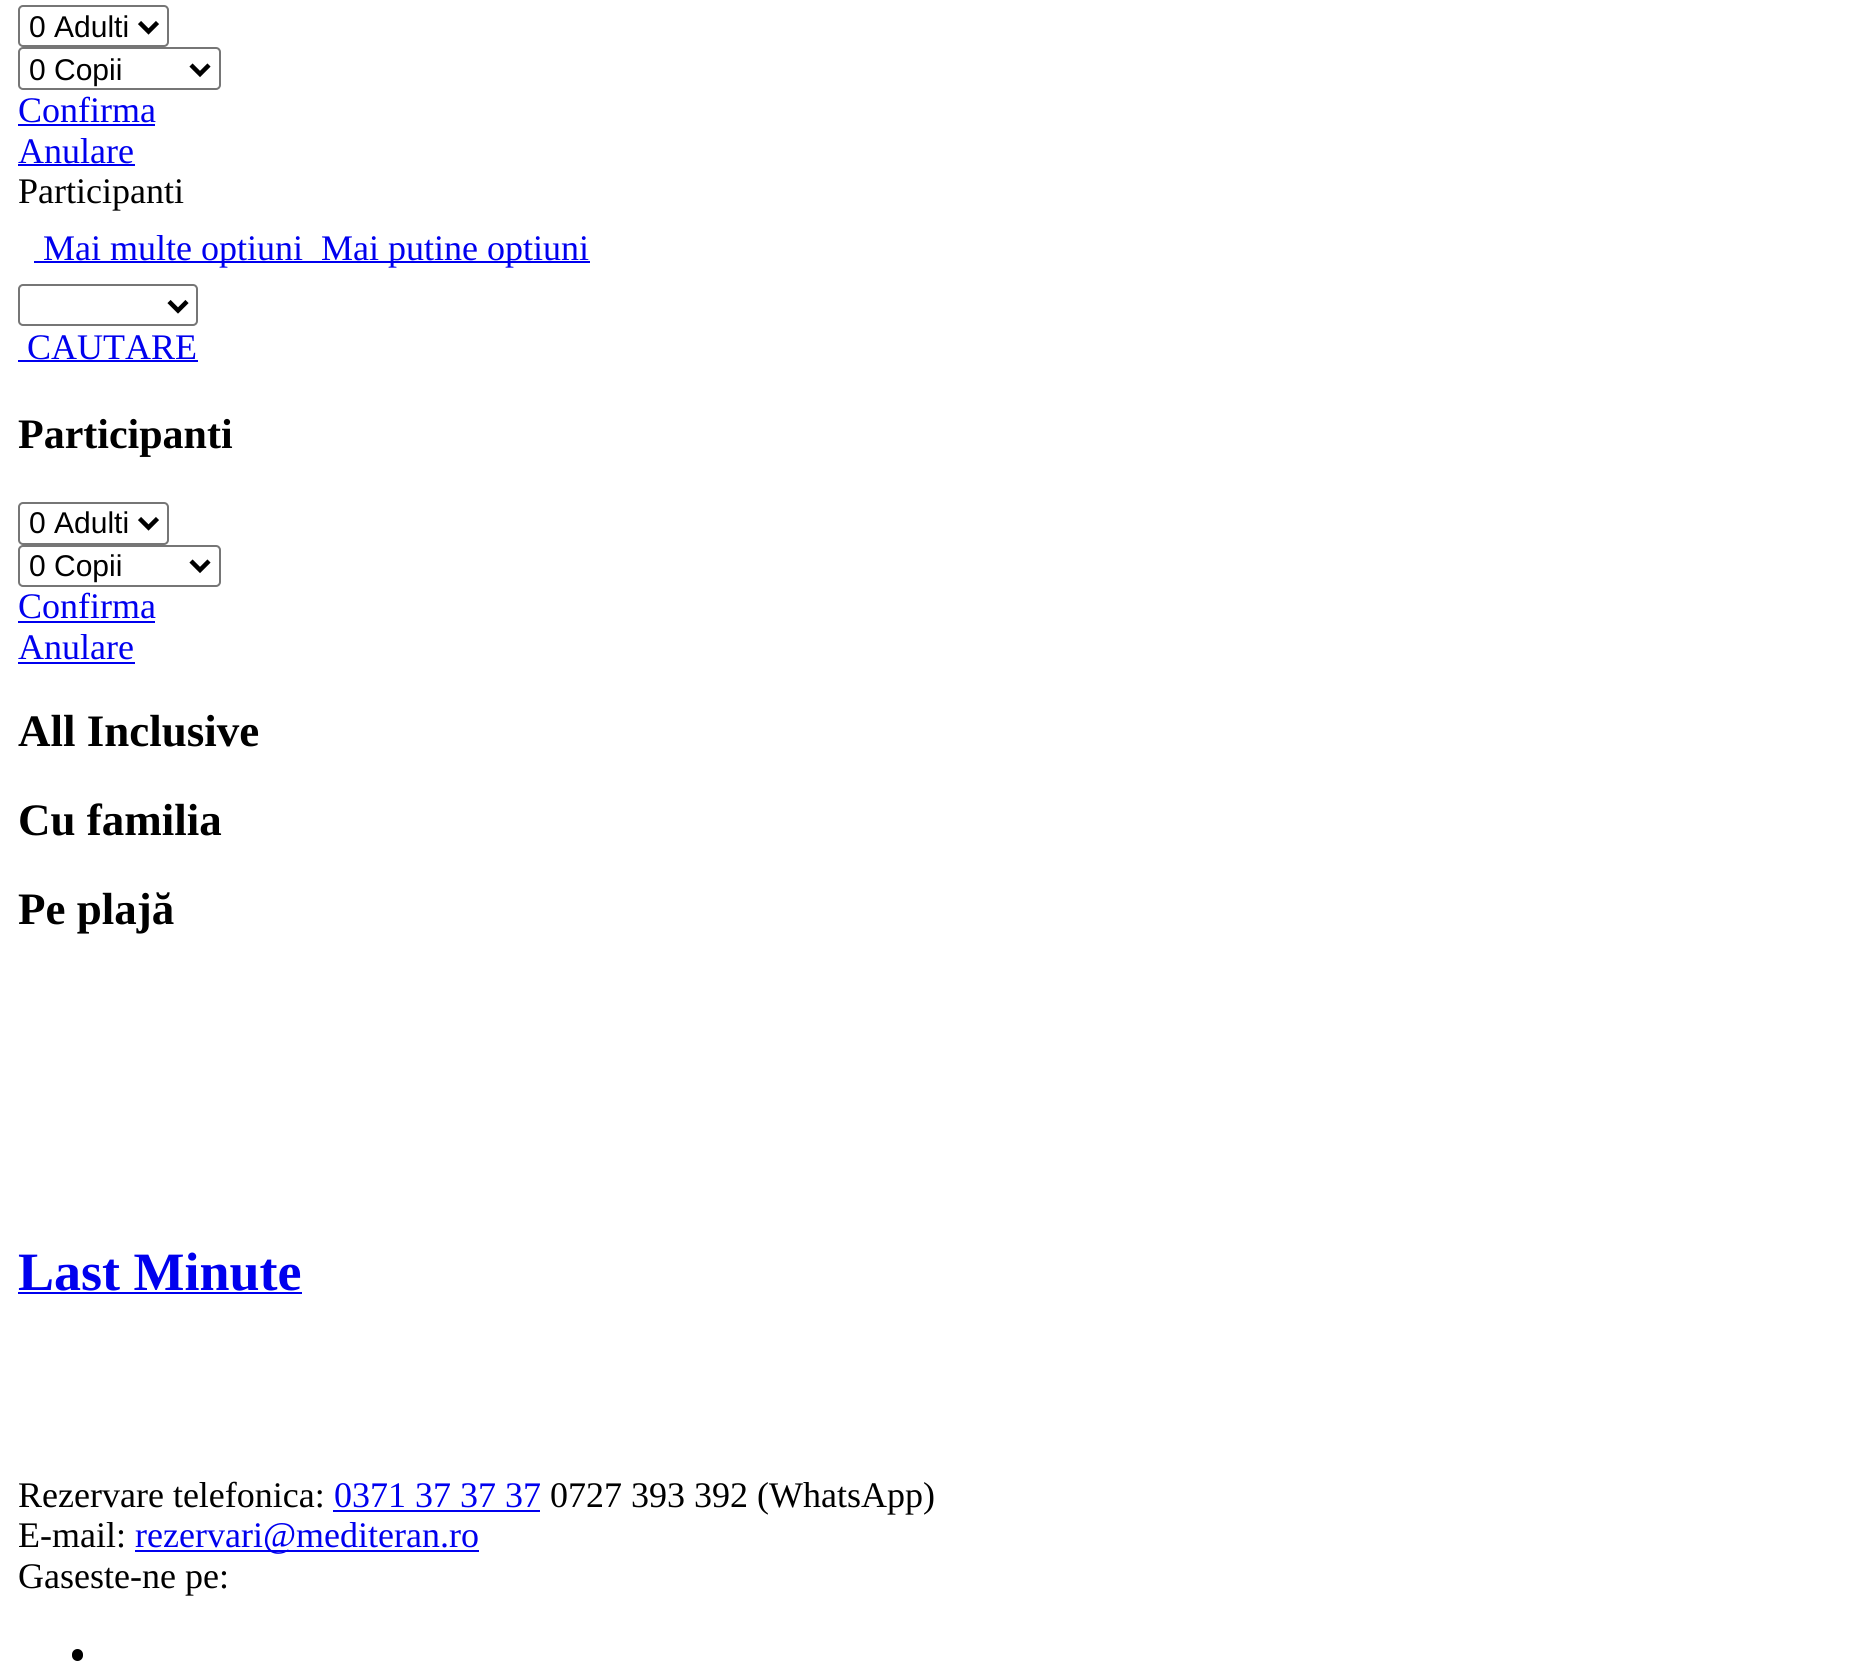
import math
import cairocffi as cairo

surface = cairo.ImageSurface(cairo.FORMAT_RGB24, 1875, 1663)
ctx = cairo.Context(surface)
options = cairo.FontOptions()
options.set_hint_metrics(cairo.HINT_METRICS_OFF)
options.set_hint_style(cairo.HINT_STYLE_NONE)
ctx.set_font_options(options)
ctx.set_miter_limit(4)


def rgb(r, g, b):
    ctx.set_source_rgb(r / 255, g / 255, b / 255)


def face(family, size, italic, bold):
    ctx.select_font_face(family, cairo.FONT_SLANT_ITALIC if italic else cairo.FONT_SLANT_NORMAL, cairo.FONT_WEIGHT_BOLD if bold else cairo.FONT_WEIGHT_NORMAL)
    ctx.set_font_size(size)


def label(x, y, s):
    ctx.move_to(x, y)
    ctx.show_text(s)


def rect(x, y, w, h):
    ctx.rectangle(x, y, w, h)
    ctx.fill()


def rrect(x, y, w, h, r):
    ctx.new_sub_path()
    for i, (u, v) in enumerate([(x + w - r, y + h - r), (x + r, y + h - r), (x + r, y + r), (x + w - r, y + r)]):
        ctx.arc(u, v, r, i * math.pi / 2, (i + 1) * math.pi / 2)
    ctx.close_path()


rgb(255, 255, 255)
ctx.paint()
rrect(19, 6, 149, 40, 4)
rgb(118, 118, 118)
ctx.stroke()
ctx.new_path()
ctx.move_to(139.5, 22.5)
ctx.line_to(148.5, 31.5)
ctx.line_to(157.5, 22.5)
rgb(0, 0, 0)
ctx.set_line_width(4.5)
ctx.stroke()
face('Liberation Sans', 30, 0, 0)
label(29, 37, '0 Adulti')
rrect(19, 48, 201, 41, 4)
rgb(118, 118, 118)
ctx.set_line_width(2)
ctx.stroke()
ctx.new_path()
ctx.move_to(191, 65)
ctx.line_to(200, 74)
ctx.line_to(209, 65)
rgb(0, 0, 0)
ctx.set_line_width(4.5)
ctx.stroke()
label(29, 80, '0 Copii')
face('Liberation Serif', 36, 0, 0)
rgb(0, 0, 238)
label(18, 122, 'Confirma')
rect(18, 124, 137, 2)
label(18, 163, 'Anulare')
rect(18, 164, 117, 2)
rgb(0, 0, 0)
label(18, 203, 'Participanti')
rgb(0, 0, 238)
rect(34, 261, 556, 2)
label(43, 260, 'Mai multe optiuni')
label(321, 260, 'Mai putine optiuni')
rrect(19, 285, 178, 40, 4)
rgb(118, 118, 118)
ctx.set_line_width(2)
ctx.stroke()
ctx.new_path()
ctx.move_to(169, 301.5)
ctx.line_to(178, 310.5)
ctx.line_to(187, 301.5)
rgb(0, 0, 0)
ctx.set_line_width(4.5)
ctx.stroke()
rgb(0, 0, 238)
label(27, 359, 'CAUTARE')
rect(18, 360, 180, 2)
face('Liberation Serif', 42, 0, 1)
rgb(0, 0, 0)
label(18, 448, 'Participanti')
rrect(19, 503, 149, 41, 4)
rgb(118, 118, 118)
ctx.set_line_width(2)
ctx.stroke()
ctx.new_path()
ctx.move_to(139.5, 518.5)
ctx.line_to(148.5, 527.5)
ctx.line_to(157.5, 518.5)
rgb(0, 0, 0)
ctx.set_line_width(4.5)
ctx.stroke()
face('Liberation Sans', 30, 0, 0)
label(29, 533, '0 Adulti')
rrect(19, 546, 201, 40, 4)
rgb(118, 118, 118)
ctx.set_line_width(2)
ctx.stroke()
ctx.new_path()
ctx.move_to(191, 561)
ctx.line_to(200, 570)
ctx.line_to(209, 561)
rgb(0, 0, 0)
ctx.set_line_width(4.5)
ctx.stroke()
label(29, 576, '0 Copii')
face('Liberation Serif', 36, 0, 0)
rgb(0, 0, 238)
label(18, 618, 'Confirma')
rect(18, 621, 137, 2)
label(18, 659, 'Anulare')
rect(18, 662, 117, 2)
face('Liberation Serif', 45, 0, 1)
rgb(0, 0, 0)
label(18, 746, 'All Inclusive')
label(18, 835, 'Cu familia')
label(18, 924, 'Pe plajă')
face('Liberation Serif', 54, 0, 1)
rgb(0, 0, 238)
label(18, 1290, 'Last Minute')
rect(18, 1292, 284, 2)
face('Liberation Serif', 36, 0, 0)
rgb(0, 0, 0)
label(18, 1507, 'Rezervare telefonica:')
rgb(0, 0, 238)
label(334, 1507, '0371 37 37 37')
rect(333, 1510, 207, 2)
rgb(0, 0, 0)
label(550, 1507, '0727 393 392 (WhatsApp)')
label(18, 1547, 'E-mail:')
rgb(0, 0, 238)
rect(135, 1550, 344, 2)
label(135, 1547, 'rezervari@mediteran.ro')
rgb(0, 0, 0)
label(18, 1588, 'Gaseste-ne pe:')
rrect(72, 1649, 11, 12, 5.5)
ctx.fill()
surface.write_to_png('render.png')
